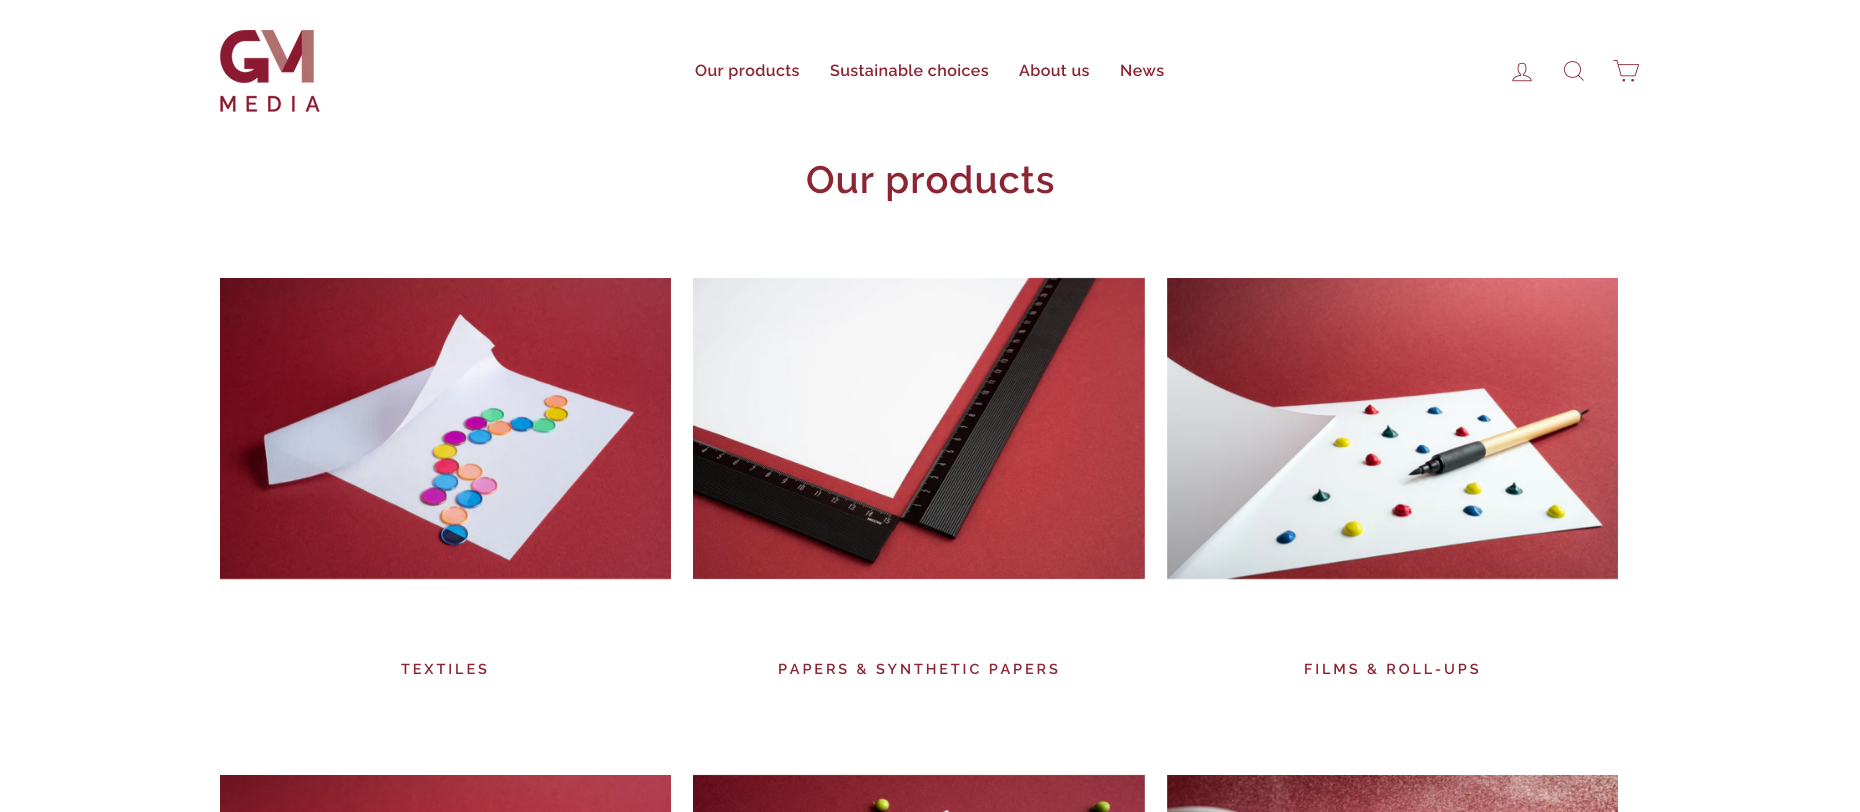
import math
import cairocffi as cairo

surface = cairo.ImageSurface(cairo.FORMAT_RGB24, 1860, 812)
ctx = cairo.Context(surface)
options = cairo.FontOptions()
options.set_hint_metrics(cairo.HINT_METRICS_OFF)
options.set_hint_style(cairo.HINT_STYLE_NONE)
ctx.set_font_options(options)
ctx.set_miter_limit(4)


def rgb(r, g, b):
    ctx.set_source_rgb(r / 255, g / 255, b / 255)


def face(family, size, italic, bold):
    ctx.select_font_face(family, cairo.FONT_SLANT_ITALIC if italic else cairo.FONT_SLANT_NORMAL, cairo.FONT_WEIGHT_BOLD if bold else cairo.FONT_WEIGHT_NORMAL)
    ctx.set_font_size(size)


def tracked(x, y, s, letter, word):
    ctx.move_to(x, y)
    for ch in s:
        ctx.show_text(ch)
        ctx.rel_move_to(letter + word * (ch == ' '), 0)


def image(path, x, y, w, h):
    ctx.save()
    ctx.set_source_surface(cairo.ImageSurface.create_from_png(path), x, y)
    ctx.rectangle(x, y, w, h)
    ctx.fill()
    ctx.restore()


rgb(255, 255, 255)
ctx.paint()
image('image0.png', 220, 30, 100, 82)
face('Raleway SemiBold', 16, 0, 0)
rgb(140, 36, 52)
tracked(695, 76, 'Our products', 0.4, 0)
tracked(830, 76, 'Sustainable choices', 0.4, 0)
tracked(1019, 76, 'About us', 0.4, 0)
tracked(1120, 76, 'News', 0.4, 0)
image('image1.png', 1512, 62, 20, 20)
ctx.new_path()
ctx.move_to(1580.5, 69.5)
ctx.curve_to(1580.5, 80, 1564.5, 80, 1564.5, 69.5)
ctx.curve_to(1564.5, 59, 1580.5, 59, 1580.5, 69.5)
ctx.close_path()
ctx.move_to(1583.5, 80.5)
ctx.line_to(1578.5, 75.5)
ctx.set_line_width(0.9)
ctx.stroke()
image('image2.png', 1613, 60, 27, 22)
face('Raleway SemiBold', 38, 0, 0)
tracked(806, 193, 'Our products', 1, 0)
image('image3.png', 220, 278, 451, 302)
face('Raleway SemiBold', 14.4, 0, 0)
tracked(401, 674, 'TEXTILES', 2.9, 0)
image('image4.png', 693, 277, 452, 303)
tracked(778, 674, 'PAPERS & SYNTHETIC PAPERS', 2.9, 0)
image('image5.png', 1167, 278, 451, 302)
tracked(1304, 674, 'FILMS & ROLL-UPS', 2.9, 0)
image('image6.png', 220, 775, 451, 37)
image('image7.png', 693, 774, 452, 38)
image('image8.png', 1167, 775, 451, 37)
surface.write_to_png('render.png')
